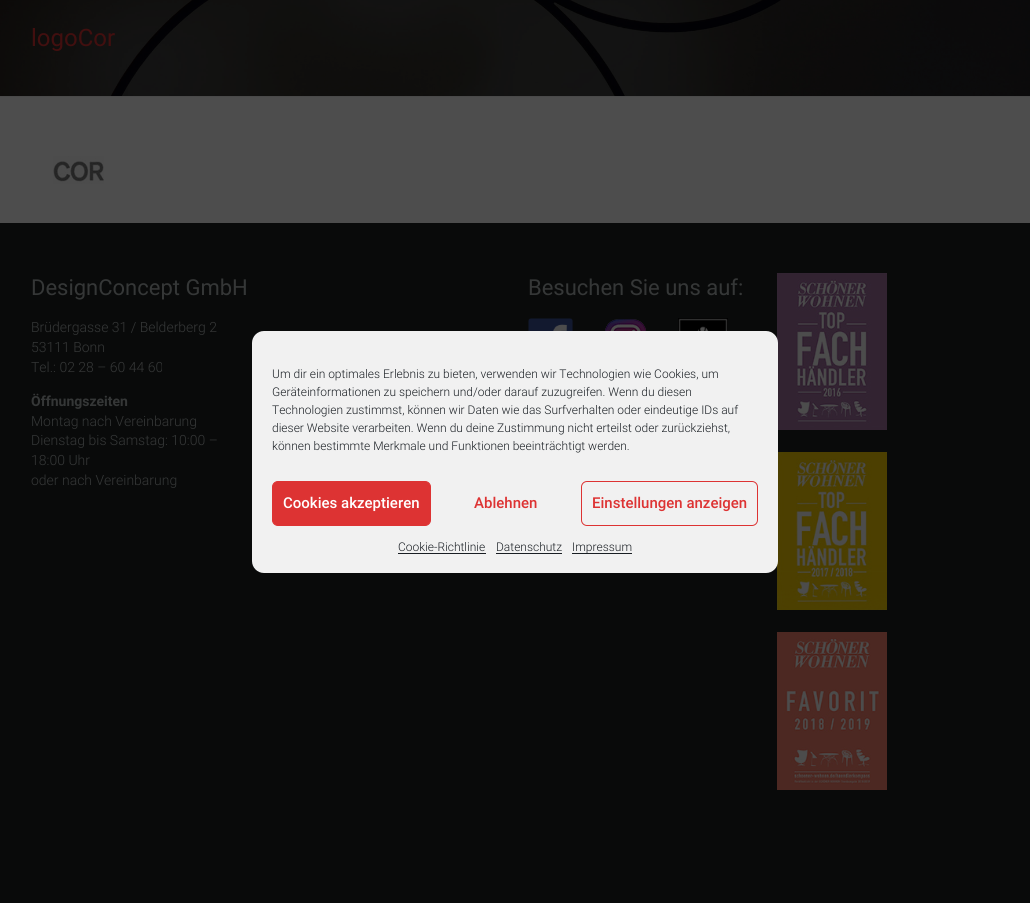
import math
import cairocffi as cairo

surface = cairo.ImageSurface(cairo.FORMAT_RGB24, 1030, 903)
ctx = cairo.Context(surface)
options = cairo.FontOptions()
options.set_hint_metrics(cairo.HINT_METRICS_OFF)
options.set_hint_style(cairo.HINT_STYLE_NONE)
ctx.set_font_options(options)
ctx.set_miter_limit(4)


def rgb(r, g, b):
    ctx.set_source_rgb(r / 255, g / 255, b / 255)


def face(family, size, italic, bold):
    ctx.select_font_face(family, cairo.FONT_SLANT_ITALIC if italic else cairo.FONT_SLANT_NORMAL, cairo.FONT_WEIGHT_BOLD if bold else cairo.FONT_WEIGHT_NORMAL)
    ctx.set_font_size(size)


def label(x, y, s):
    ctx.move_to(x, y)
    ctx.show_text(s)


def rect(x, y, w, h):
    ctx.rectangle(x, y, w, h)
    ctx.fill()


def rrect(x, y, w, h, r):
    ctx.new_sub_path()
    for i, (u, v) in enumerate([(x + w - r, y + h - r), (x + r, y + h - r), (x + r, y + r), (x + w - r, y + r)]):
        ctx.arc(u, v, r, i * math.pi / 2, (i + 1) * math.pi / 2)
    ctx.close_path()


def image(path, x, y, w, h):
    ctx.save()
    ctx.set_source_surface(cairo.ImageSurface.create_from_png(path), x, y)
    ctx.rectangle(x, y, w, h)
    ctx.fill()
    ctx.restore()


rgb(77, 77, 77)
ctx.paint()
image('image0.png', 0, 0, 1030, 96)
rgb(73, 73, 73)
rect(0, 96, 1030, 1)
face('Roboto', 24, 0, 0)
rgb(66, 15, 15)
label(31, 46, 'logoCor')
image('image1.png', 53, 156, 51, 28)
rgb(9, 10, 10)
rect(0, 223, 1030, 680)
face('Roboto', 22, 0, 0)
rgb(53, 55, 55)
label(31, 295, 'DesignConcept GmbH')
face('Roboto Light', 14, 0, 0)
label(31, 332, 'Brüdergasse 31 / Belderberg 2')
label(31, 352, '53111 Bonn')
label(31, 372, 'Tel.: 02 28 – 60 44 60')
face('Roboto', 14, 0, 1)
label(31, 406, 'Öffnungszeiten')
face('Roboto Light', 14, 0, 0)
label(31, 426, 'Montag nach Vereinbarung')
label(31, 445, 'Dienstag bis Samstag: 10:00 –')
label(31, 465, '18:00 Uhr')
label(31, 485, 'oder nach Vereinbarung')
face('Roboto', 22, 0, 0)
label(528, 295, 'Besuchen Sie uns auf:')
image('image2.png', 528, 318, 45, 13)
image('image3.png', 605, 319, 42, 12)
image('image4.png', 678, 318, 50, 13)
image('image5.png', 777, 273, 110, 157)
image('image6.png', 777, 452, 110, 158)
image('image7.png', 777, 632, 110, 158)
rgb(241, 241, 241)
rrect(252, 331, 526, 242, 12)
ctx.fill()
face('Roboto Light', 12, 0, 0)
rgb(25, 30, 35)
label(272, 378, 'Um dir ein optimales Erlebnis zu bieten, verwenden wir Technologien wie Cookies, um')
label(272, 396, 'Geräteinformationen zu speichern und/oder darauf zuzugreifen. Wenn du diesen')
label(272, 414, 'Technologien zustimmst, können wir Daten wie das Surfverhalten oder eindeutige IDs auf')
label(272, 432, 'dieser Website verarbeiten. Wenn du deine Zustimmung nicht erteilst oder zurückziehst,')
label(272, 450, 'können bestimmte Merkmale und Funktionen beeinträchtigt werden.')
rgb(221, 51, 51)
rrect(272.5, 481.5, 158, 44, 5.5)
ctx.fill_preserve()
ctx.set_line_width(1)
ctx.stroke()
face('Roboto Medium', 15, 0, 0)
rgb(255, 255, 255)
label(283, 508, 'Cookies akzeptieren')
rgb(221, 51, 51)
label(474, 508, 'Ablehnen')
rrect(581.5, 481.5, 176, 44, 5.5)
ctx.stroke()
label(592, 508, 'Einstellungen anzeigen')
face('Roboto Light', 12, 0, 0)
rgb(25, 30, 35)
label(398, 551, 'Cookie-Richtlinie')
rect(398, 553, 88, 1)
label(496, 551, 'Datenschutz')
rect(496, 553, 66, 1)
rect(572, 553, 60, 1)
label(572, 551, 'Impressum')
surface.write_to_png('render.png')
